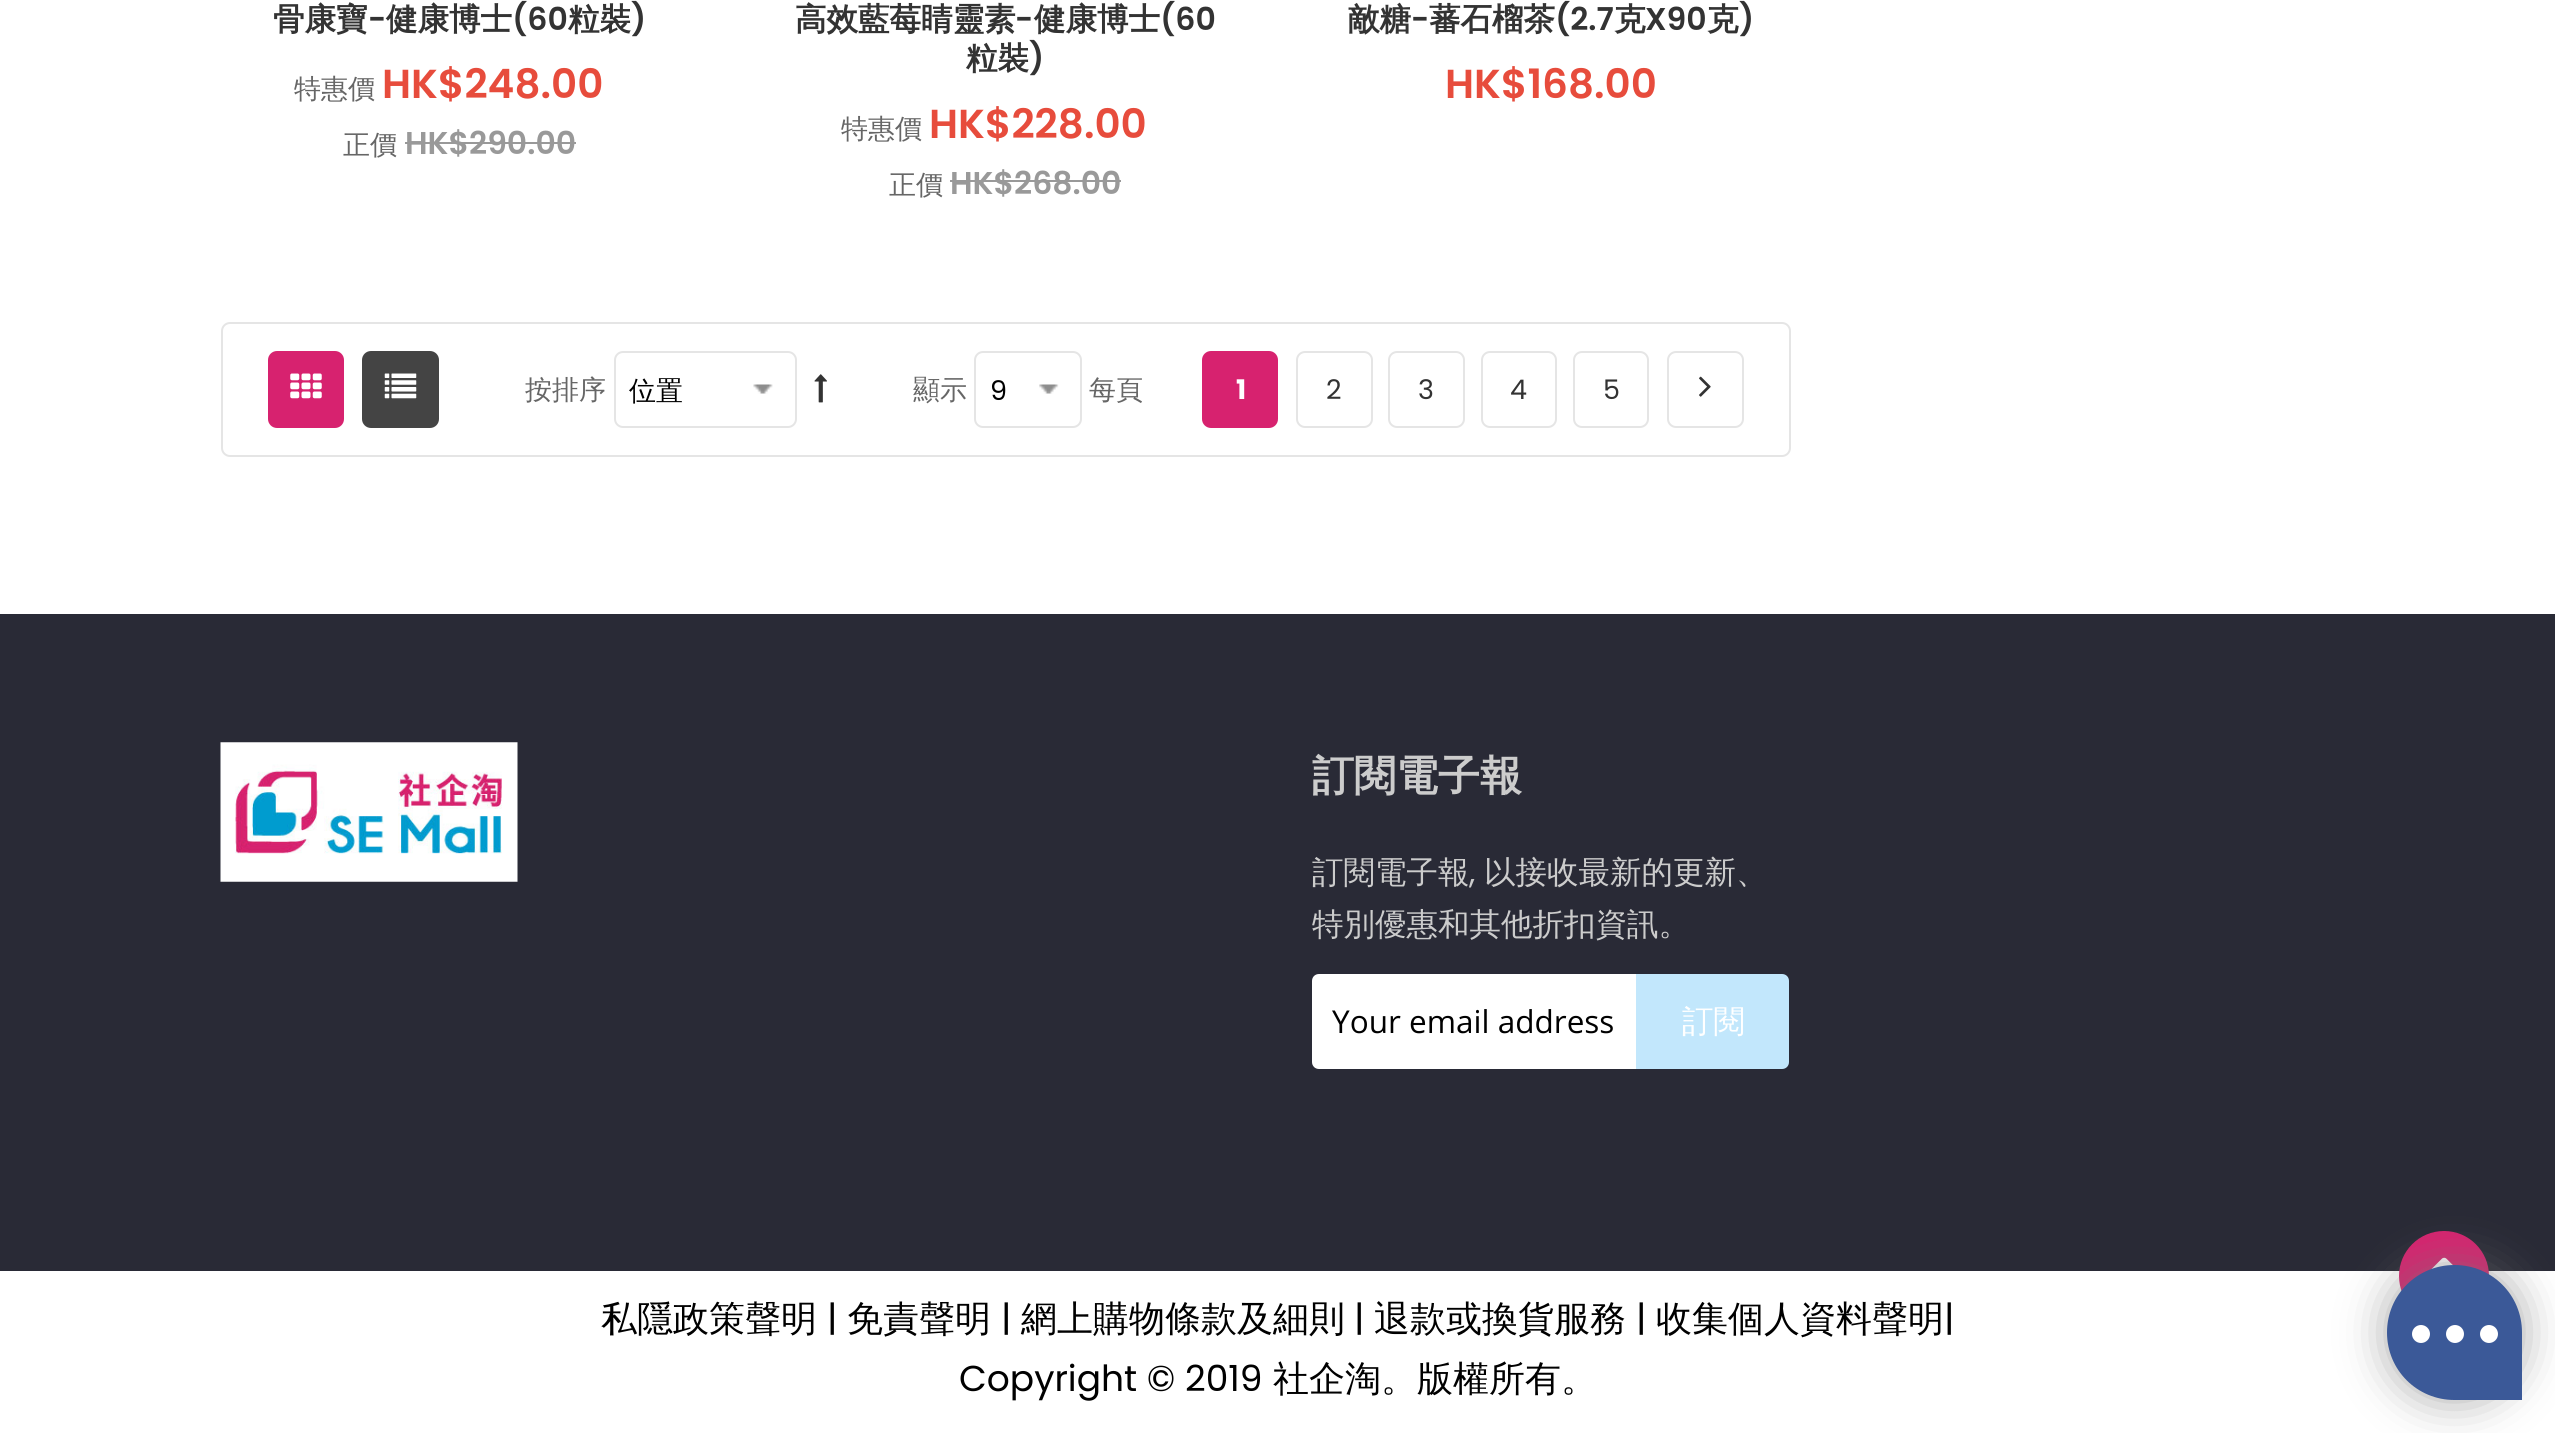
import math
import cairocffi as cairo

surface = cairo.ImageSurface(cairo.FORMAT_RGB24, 2555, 1433)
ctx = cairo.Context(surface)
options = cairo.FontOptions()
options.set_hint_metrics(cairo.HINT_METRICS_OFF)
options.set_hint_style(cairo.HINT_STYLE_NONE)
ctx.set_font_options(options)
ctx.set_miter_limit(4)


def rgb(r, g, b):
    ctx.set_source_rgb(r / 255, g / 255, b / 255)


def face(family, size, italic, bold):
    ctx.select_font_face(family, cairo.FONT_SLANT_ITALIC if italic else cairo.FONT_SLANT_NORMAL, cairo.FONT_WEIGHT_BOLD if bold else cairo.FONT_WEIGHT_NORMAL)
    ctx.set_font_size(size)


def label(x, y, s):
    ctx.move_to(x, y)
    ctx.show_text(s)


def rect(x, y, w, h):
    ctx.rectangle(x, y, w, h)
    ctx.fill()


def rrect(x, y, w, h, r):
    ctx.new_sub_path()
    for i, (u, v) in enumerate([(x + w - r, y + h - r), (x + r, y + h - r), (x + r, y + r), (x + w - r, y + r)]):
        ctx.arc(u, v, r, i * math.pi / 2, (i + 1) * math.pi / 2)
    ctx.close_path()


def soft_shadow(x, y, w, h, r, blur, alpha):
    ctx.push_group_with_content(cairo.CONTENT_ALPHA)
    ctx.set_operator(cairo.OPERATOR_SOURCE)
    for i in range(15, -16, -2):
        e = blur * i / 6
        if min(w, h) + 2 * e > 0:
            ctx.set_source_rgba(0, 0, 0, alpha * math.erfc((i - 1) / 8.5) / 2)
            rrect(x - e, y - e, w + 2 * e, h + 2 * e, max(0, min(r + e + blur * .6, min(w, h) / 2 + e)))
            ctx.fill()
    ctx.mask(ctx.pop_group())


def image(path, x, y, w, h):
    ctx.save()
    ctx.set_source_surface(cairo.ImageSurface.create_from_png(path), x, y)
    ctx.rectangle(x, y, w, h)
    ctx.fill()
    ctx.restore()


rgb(255, 255, 255)
ctx.paint()
face('WenQuanYi Zen Hei', 31.5, 0, 1)
rgb(51, 51, 51)
label(273, 30, '骨康寶')
face('Poppins SemiBold', 31.5, 0, 0)
label(368, 30, '-')
face('WenQuanYi Zen Hei', 31.5, 0, 1)
label(386, 30, '健康博士')
face('Poppins SemiBold', 31.5, 0, 0)
label(512, 30, '(60')
face('WenQuanYi Zen Hei', 31.5, 0, 1)
label(568, 30, '粒裝')
face('Poppins SemiBold', 31.5, 0, 0)
label(631, 30, ')')
face('WenQuanYi Zen Hei Medium', 27, 0, 0)
rgb(102, 102, 102)
label(294, 98, '特惠價')
face('Poppins SemiBold', 40.5, 0, 0)
rgb(231, 76, 60)
label(382, 98, 'HK$248.00')
face('WenQuanYi Zen Hei Medium', 27, 0, 0)
rgb(102, 102, 102)
label(343, 154, '正價')
face('Poppins SemiBold', 31.5, 0, 0)
rgb(153, 153, 153)
label(405, 154, 'HK$290.00')
rect(405, 142, 171, 2)
face('WenQuanYi Zen Hei', 31.5, 0, 1)
rgb(51, 51, 51)
label(795, 30, '高效藍莓睛靈素')
face('Poppins SemiBold', 31.5, 0, 0)
label(1015, 30, '-')
face('WenQuanYi Zen Hei', 31.5, 0, 1)
label(1034, 30, '健康博士')
face('Poppins SemiBold', 31.5, 0, 0)
label(1160, 30, '(60')
face('WenQuanYi Zen Hei', 31.5, 0, 1)
label(966, 69, '粒裝')
face('Poppins SemiBold', 31.5, 0, 0)
label(1029, 69, ')')
face('WenQuanYi Zen Hei Medium', 27, 0, 0)
rgb(102, 102, 102)
label(841, 138, '特惠價')
face('Poppins SemiBold', 40.5, 0, 0)
rgb(231, 76, 60)
label(929, 138, 'HK$228.00')
face('WenQuanYi Zen Hei Medium', 27, 0, 0)
rgb(102, 102, 102)
label(889, 194, '正價')
face('Poppins SemiBold', 31.5, 0, 0)
rgb(153, 153, 153)
label(950, 194, 'HK$268.00')
rect(950, 180, 171, 2)
face('WenQuanYi Zen Hei', 31.5, 0, 1)
rgb(51, 51, 51)
label(1348, 30, '敵糖')
face('Poppins SemiBold', 31.5, 0, 0)
label(1411, 30, '-')
face('WenQuanYi Zen Hei', 31.5, 0, 1)
label(1429, 30, '蕃石榴茶')
face('Poppins SemiBold', 31.5, 0, 0)
label(1555, 30, '(2.7')
face('WenQuanYi Zen Hei', 31.5, 0, 1)
label(1614, 30, '克')
face('Poppins SemiBold', 31.5, 0, 0)
label(1645, 30, 'X90')
face('WenQuanYi Zen Hei', 31.5, 0, 1)
label(1707, 30, '克')
face('Poppins SemiBold', 31.5, 0, 0)
label(1739, 30, ')')
face('Poppins SemiBold', 40.5, 0, 0)
rgb(231, 76, 60)
label(1445, 98, 'HK$168.00')
rrect(222, 323, 1568, 133, 8)
rgb(229, 229, 229)
ctx.stroke()
rgb(215, 34, 111)
rrect(268, 351, 76, 77, 9)
ctx.fill()
image('image0.png', 290, 373, 32, 26)
rgb(68, 68, 68)
rrect(362, 351, 77, 77, 9)
ctx.fill()
image('image1.png', 384, 373, 33, 26)
face('WenQuanYi Zen Hei Medium', 27, 0, 0)
rgb(102, 102, 102)
label(525, 399, '按排序')
image('image2.png', 753, 384, 20, 10)
rrect(615, 352, 181, 75, 8)
rgb(229, 229, 229)
ctx.stroke()
rgb(0, 0, 0)
label(629, 400, '位置')
image('image3.png', 814, 374, 13, 29)
rgb(102, 102, 102)
label(913, 399, '顯示')
image('image4.png', 1039, 384, 20, 10)
rrect(975, 352, 106, 75, 8)
rgb(229, 229, 229)
ctx.stroke()
face('Poppins', 27, 0, 0)
rgb(0, 0, 0)
label(990, 400, '9')
face('WenQuanYi Zen Hei Medium', 27, 0, 0)
rgb(102, 102, 102)
label(1089, 399, '每頁')
rgb(215, 34, 111)
rrect(1203, 352, 74, 75, 8)
ctx.fill_preserve()
ctx.stroke()
face('Poppins', 27, 0, 1)
rgb(255, 255, 255)
label(1236, 399, '1')
rrect(1297, 352, 75, 75, 8)
rgb(229, 229, 229)
ctx.stroke()
face('Poppins', 27, 0, 0)
rgb(51, 51, 51)
label(1326, 399, '2')
rrect(1389, 352, 75, 75, 8)
rgb(229, 229, 229)
ctx.stroke()
rgb(51, 51, 51)
label(1418, 399, '3')
rrect(1482, 352, 74, 75, 8)
rgb(229, 229, 229)
ctx.stroke()
rgb(51, 51, 51)
label(1510, 399, '4')
rrect(1574, 352, 74, 75, 8)
rgb(229, 229, 229)
ctx.stroke()
rgb(51, 51, 51)
label(1603, 399, '5')
rrect(1668, 352, 75, 75, 8)
rgb(229, 229, 229)
ctx.stroke()
image('image5.png', 1699, 376, 12, 21)
rgb(41, 42, 54)
rect(0, 614, 2555, 657)
image('image6.png', 220, 742, 298, 140)
face('WenQuanYi Zen Hei', 42, 0, 1)
rgb(204, 204, 204)
label(1312, 790, '訂閱電子報')
face('WenQuanYi Zen Hei Medium', 31.5, 0, 0)
label(1312, 883, '訂閱電子報')
face('Poppins', 31.5, 0, 0)
label(1469, 883, ',')
face('WenQuanYi Zen Hei Medium', 31.5, 0, 0)
label(1484, 883, '以接收最新的更新、')
label(1312, 935, '特別優惠和其他折扣資訊。')
rgb(255, 255, 255)
ctx.new_path()
ctx.move_to(1319, 974)
ctx.line_to(1636, 974)
ctx.line_to(1636, 1069)
ctx.line_to(1319, 1069)
ctx.curve_to(1315, 1069, 1312, 1066, 1312, 1062)
ctx.line_to(1312, 981)
ctx.curve_to(1312, 977, 1315, 974, 1319, 974)
ctx.close_path()
ctx.fill()
face('Open Sans', 31.5, 0, 0)
rgb(0, 0, 0)
label(1332, 1033, 'Your email address')
rgb(194, 231, 252)
ctx.new_path()
ctx.move_to(1636, 974)
ctx.line_to(1782, 974)
ctx.curve_to(1786, 974, 1789, 977, 1789, 981)
ctx.line_to(1789, 1062)
ctx.curve_to(1789, 1066, 1786, 1069, 1782, 1069)
ctx.line_to(1636, 1069)
ctx.close_path()
ctx.fill()
face('WenQuanYi Zen Hei Medium', 31.5, 0, 0)
rgb(255, 255, 255)
label(1682, 1032, '訂閱')
face('WenQuanYi Zen Hei Medium', 36, 0, 0)
rgb(0, 0, 0)
label(601, 1331, '私隱政策聲明')
face('Poppins', 36, 0, 0)
label(827, 1331, '|')
face('WenQuanYi Zen Hei Medium', 36, 0, 0)
label(847, 1331, '免責聲明')
face('Poppins', 36, 0, 0)
label(1001, 1331, '|')
face('WenQuanYi Zen Hei Medium', 36, 0, 0)
label(1021, 1331, '網上購物條款及細則')
face('Poppins', 36, 0, 0)
label(1354, 1331, '|')
face('WenQuanYi Zen Hei Medium', 36, 0, 0)
label(1374, 1331, '退款或換貨服務')
face('Poppins', 36, 0, 0)
label(1636, 1331, '|')
face('WenQuanYi Zen Hei Medium', 36, 0, 0)
label(1656, 1331, '收集個人資料聲明')
face('Poppins', 36, 0, 0)
label(1944, 1331, '|')
label(959, 1391, 'Copyright © 2019')
face('WenQuanYi Zen Hei Medium', 36, 0, 0)
label(1273, 1391, '社企淘。版權所有。')
rgb(215, 34, 111)
ctx.new_path()
ctx.arc(2444, 1276, 45, 0, 2 * math.pi)
ctx.fill()
image('image7.png', 2430, 1257, 24, 13)
rgb(119, 119, 119)
soft_shadow(2387, 1265, 135, 135, 67.5, 22.5, 0.64)
rgb(59, 89, 152)
ctx.new_path()
ctx.move_to(2454.5, 1265)
ctx.curve_to(2492, 1265, 2522, 1295, 2522, 1332.5)
ctx.line_to(2522, 1400)
ctx.line_to(2454.5, 1400)
ctx.curve_to(2417, 1400, 2387, 1370, 2387, 1332.5)
ctx.curve_to(2387, 1295, 2417, 1265, 2454.5, 1265)
ctx.close_path()
ctx.fill()
rgb(255, 255, 255)
ctx.arc(2421, 1334, 9, 0, 2 * math.pi)
ctx.fill()
ctx.arc(2455, 1334, 9, 0, 2 * math.pi)
ctx.fill()
ctx.arc(2489, 1334, 9, 0, 2 * math.pi)
ctx.fill()
surface.write_to_png('render.png')
